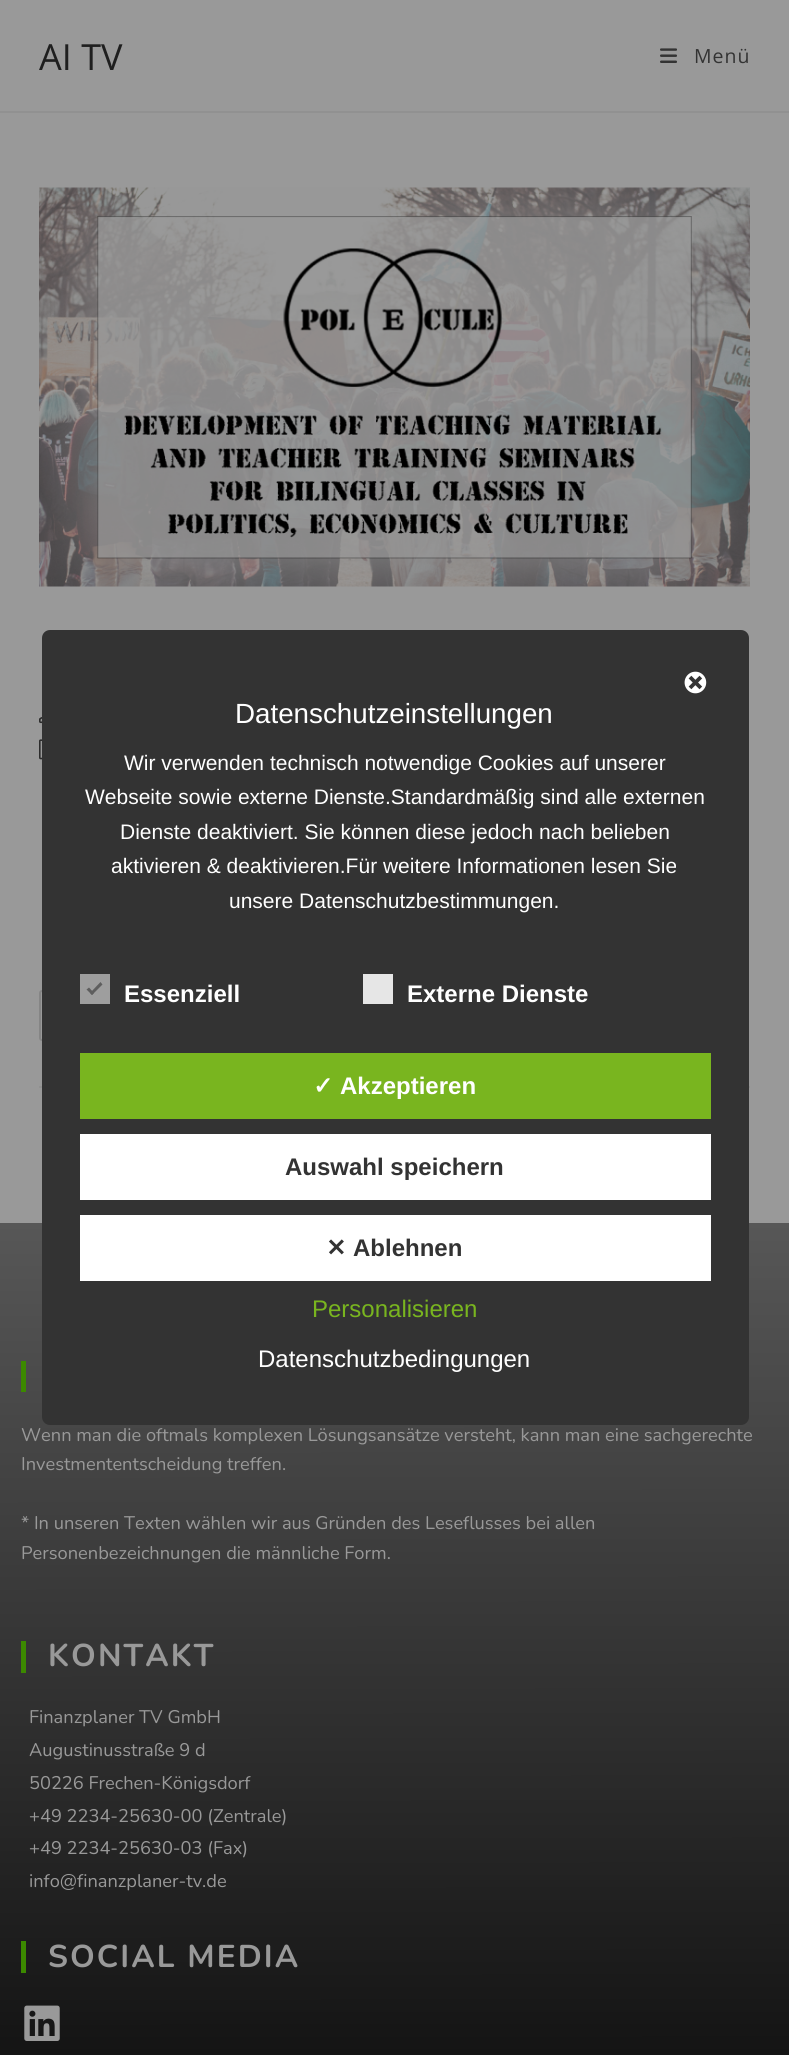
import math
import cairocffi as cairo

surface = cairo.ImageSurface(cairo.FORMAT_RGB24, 789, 2055)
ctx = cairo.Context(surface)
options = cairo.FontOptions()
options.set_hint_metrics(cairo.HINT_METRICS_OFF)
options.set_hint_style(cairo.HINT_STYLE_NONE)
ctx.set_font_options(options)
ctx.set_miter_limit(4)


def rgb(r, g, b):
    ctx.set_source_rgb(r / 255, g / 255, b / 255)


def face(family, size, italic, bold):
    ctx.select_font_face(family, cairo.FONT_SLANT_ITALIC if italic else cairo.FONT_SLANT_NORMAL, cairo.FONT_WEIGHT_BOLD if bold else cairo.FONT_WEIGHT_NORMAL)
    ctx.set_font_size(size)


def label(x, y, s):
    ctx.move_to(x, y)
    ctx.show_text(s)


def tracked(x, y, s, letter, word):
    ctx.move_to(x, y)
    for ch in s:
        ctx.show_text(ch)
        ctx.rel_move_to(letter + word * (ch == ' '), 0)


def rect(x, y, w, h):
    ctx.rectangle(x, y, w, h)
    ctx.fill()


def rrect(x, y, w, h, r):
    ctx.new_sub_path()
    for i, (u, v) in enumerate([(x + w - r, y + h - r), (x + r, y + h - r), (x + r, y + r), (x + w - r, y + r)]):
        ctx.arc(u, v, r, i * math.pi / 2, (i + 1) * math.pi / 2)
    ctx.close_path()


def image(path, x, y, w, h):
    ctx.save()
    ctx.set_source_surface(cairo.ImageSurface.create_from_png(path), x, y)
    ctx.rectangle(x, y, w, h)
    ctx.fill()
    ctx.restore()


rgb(153, 153, 153)
ctx.paint()
rgb(145, 145, 145)
rect(0, 111, 789, 2)
face('Open Sans', 36, 0, 0)
rgb(31, 31, 31)
label(39, 70, 'AI TV')
image('image0.png', 660, 48, 17, 15)
face('Open Sans', 19.5, 0, 0)
rgb(51, 51, 51)
tracked(694, 63, 'Menü', 1, 0)
rgb(145, 145, 145)
rect(39, 1086, 711, 2)
image('image1.png', 39, 187, 711, 400)
image('image2.png', 39, 717, 3, 7)
image('image3.png', 39, 739, 3, 21)
rrect(40, 991, 181, 49, 2)
rgb(133, 133, 133)
ctx.stroke()
gradient = cairo.LinearGradient(394, 1223, 395, 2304)
gradient.add_color_stop_rgba(0, 0.341, 0.341, 0.341, 1)
gradient.add_color_stop_rgba(1, 0, 0, 0, 1)
ctx.set_source(gradient)
rect(0, 1223, 789, 832)
rgb(60, 137, 0)
rect(21, 1361, 5, 31)
face('Nunito', 18.25, 0, 0)
rgb(153, 153, 153)
label(21, 1441, 'Wenn man die oftmals komplexen Lösungsansätze versteht, kann man eine sachgerechte')
label(21, 1470, 'Investmententscheidung treffen.')
label(21, 1529, '* In unseren Texten wählen wir aus Gründen des Leseflusses bei allen')
label(21, 1559, 'Personenbezeichnungen die männliche Form.')
rgb(60, 137, 0)
rect(21, 1641, 5, 32)
face('Nunito', 31.5, 0, 1)
rgb(153, 153, 153)
tracked(48, 1666, 'KONTAKT', 2.1, 0)
face('Nunito', 18.25, 0, 0)
label(29, 1723, 'Finanzplaner TV GmbH')
label(29, 1756, 'Augustinusstraße 9 d')
label(29, 1789, '50226 Frechen-Königsdorf')
label(29, 1822, '+49 2234-25630-00 (Zentrale)')
label(29, 1854, '+49 2234-25630-03 (Fax)')
label(29, 1887, 'info@finanzplaner-tv.de')
rgb(60, 137, 0)
rect(21, 1941, 5, 32)
face('Nunito', 31.5, 0, 1)
rgb(153, 153, 153)
tracked(48, 1967, 'SOCIAL MEDIA', 2.1, 0)
image('image4.png', 24, 2005, 36, 36)
rgb(51, 51, 51)
rrect(42, 630, 707, 795, 8)
ctx.fill()
image('image5.png', 684, 671, 23, 23)
face('Liberation Sans', 27.75, 0, 0)
rgb(255, 255, 255)
label(235, 723, 'Datenschutzeinstellungen')
face('Liberation Sans', 21, 0, 0)
label(124, 770, 'Wir verwenden technisch notwendige Cookies auf unserer')
label(85, 804, 'Webseite sowie externe Dienste.Standardmäßig sind alle externen')
label(120, 839, 'Dienste deaktiviert. Sie können diese jedoch nach belieben')
label(111, 873, 'aktivieren & deaktivieren.Für weitere Informationen lesen Sie')
label(229, 908, 'unsere Datenschutzbestimmungen.')
rgb(158, 158, 158)
rect(80, 974, 30, 30)
rgb(94, 94, 94)
ctx.new_path()
ctx.move_to(100.5, 982)
ctx.line_to(102.5, 984.5)
ctx.line_to(92, 995)
ctx.line_to(90, 993)
ctx.close_path()
ctx.fill()
ctx.new_path()
ctx.move_to(89, 987.5)
ctx.line_to(94, 993)
ctx.line_to(92, 995)
ctx.line_to(86.5, 989.5)
ctx.close_path()
ctx.fill()
face('Liberation Sans', 24, 0, 1)
rgb(255, 255, 255)
label(124, 1002, 'Essenziell')
rgb(230, 230, 230)
rect(363, 974, 30, 30)
rgb(255, 255, 255)
label(407, 1002, 'Externe Dienste')
rgb(121, 181, 31)
rect(80, 1053, 631, 66)
face('DejaVu Sans', 24, 0, 1)
rgb(255, 255, 255)
label(313, 1094, '✓')
face('Liberation Sans', 24, 0, 1)
label(340, 1094, 'Akzeptieren')
rect(80, 1134, 631, 66)
rgb(51, 51, 51)
label(285, 1175, 'Auswahl speichern')
rgb(255, 255, 255)
rect(80, 1215, 631, 66)
face('DejaVu Sans', 24, 0, 1)
rgb(51, 51, 51)
label(326, 1256, '✕')
face('Liberation Sans', 24, 0, 1)
label(353, 1256, 'Ablehnen')
face('Liberation Sans', 24, 0, 0)
rgb(121, 181, 31)
label(312, 1317, 'Personalisieren')
rgb(255, 255, 255)
label(258, 1367, 'Datenschutzbedingungen')
surface.write_to_png('render.png')
